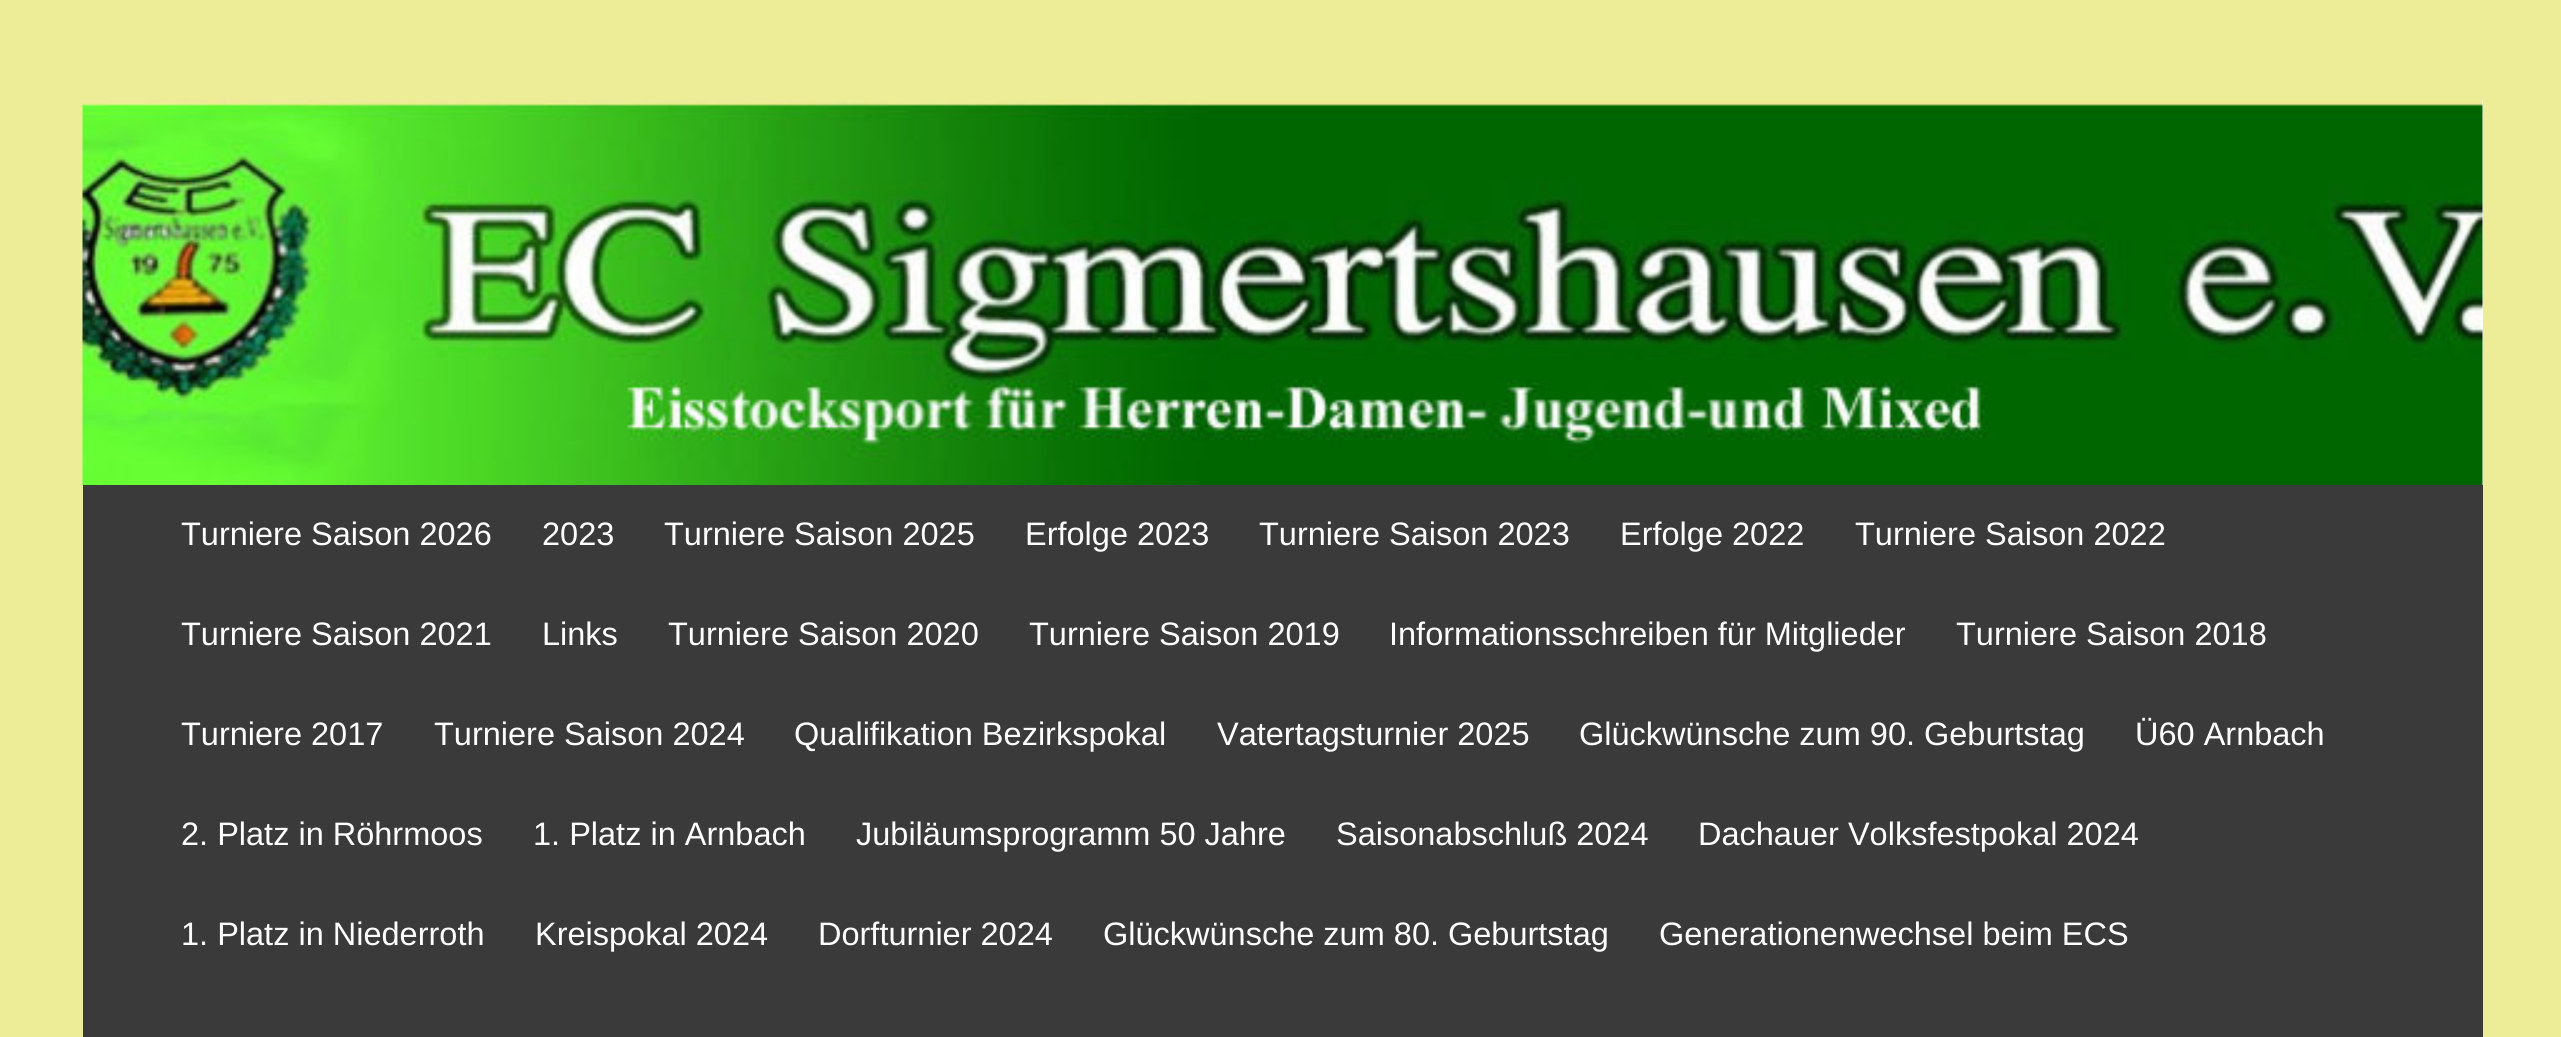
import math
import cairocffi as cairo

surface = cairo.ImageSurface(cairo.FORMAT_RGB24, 2561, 1037)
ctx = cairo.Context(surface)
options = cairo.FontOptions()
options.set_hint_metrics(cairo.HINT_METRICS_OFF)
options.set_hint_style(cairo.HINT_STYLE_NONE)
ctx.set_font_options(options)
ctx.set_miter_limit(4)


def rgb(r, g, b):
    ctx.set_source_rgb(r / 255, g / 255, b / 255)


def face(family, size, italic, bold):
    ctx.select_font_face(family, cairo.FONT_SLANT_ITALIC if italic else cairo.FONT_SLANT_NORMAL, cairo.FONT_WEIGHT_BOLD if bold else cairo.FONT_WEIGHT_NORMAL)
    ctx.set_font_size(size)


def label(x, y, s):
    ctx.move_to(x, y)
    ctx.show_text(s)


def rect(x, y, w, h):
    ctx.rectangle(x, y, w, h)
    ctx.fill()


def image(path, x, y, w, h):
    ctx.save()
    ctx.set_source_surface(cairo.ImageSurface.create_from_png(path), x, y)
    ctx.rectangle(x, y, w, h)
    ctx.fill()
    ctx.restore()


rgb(237, 237, 151)
ctx.paint()
rgb(255, 255, 255)
rect(2482, 100, 1, 385)
image('image0.png', 82, 100, 2401, 385)
rgb(58, 58, 58)
rect(83, 485, 2400, 552)
face('Liberation Sans', 32.5, 0, 0)
rgb(255, 255, 255)
label(181, 545, 'Turniere Saison 2026')
label(542, 545, '2023')
label(664, 545, 'Turniere Saison 2025')
label(1025, 545, 'Erfolge 2023')
label(1259, 545, 'Turniere Saison 2023')
label(1620, 545, 'Erfolge 2022')
label(1855, 545, 'Turniere Saison 2022')
label(181, 645, 'Turniere Saison 2021')
label(542, 645, 'Links')
label(668, 645, 'Turniere Saison 2020')
label(1029, 645, 'Turniere Saison 2019')
label(1389, 645, 'Informationsschreiben für Mitglieder')
label(1956, 645, 'Turniere Saison 2018')
label(181, 745, 'Turniere 2017')
label(434, 745, 'Turniere Saison 2024')
label(794, 745, 'Qualifikation Bezirkspokal')
label(1217, 745, 'Vatertagsturnier 2025')
label(1579, 745, 'Glückwünsche zum 90. Geburtstag')
label(2135, 745, 'Ü60 Arnbach')
label(181, 845, '2. Platz in Röhrmoos')
label(533, 845, '1. Platz in Arnbach')
label(856, 845, 'Jubiläumsprogramm 50 Jahre')
label(1336, 845, 'Saisonabschluß 2024')
label(1698, 845, 'Dachauer Volksfestpokal 2024')
label(181, 945, '1. Platz in Niederroth')
label(535, 945, 'Kreispokal 2024')
label(818, 945, 'Dorfturnier 2024')
label(1103, 945, 'Glückwünsche zum 80. Geburtstag')
label(1659, 945, 'Generationenwechsel beim ECS')
surface.write_to_png('render.png')
